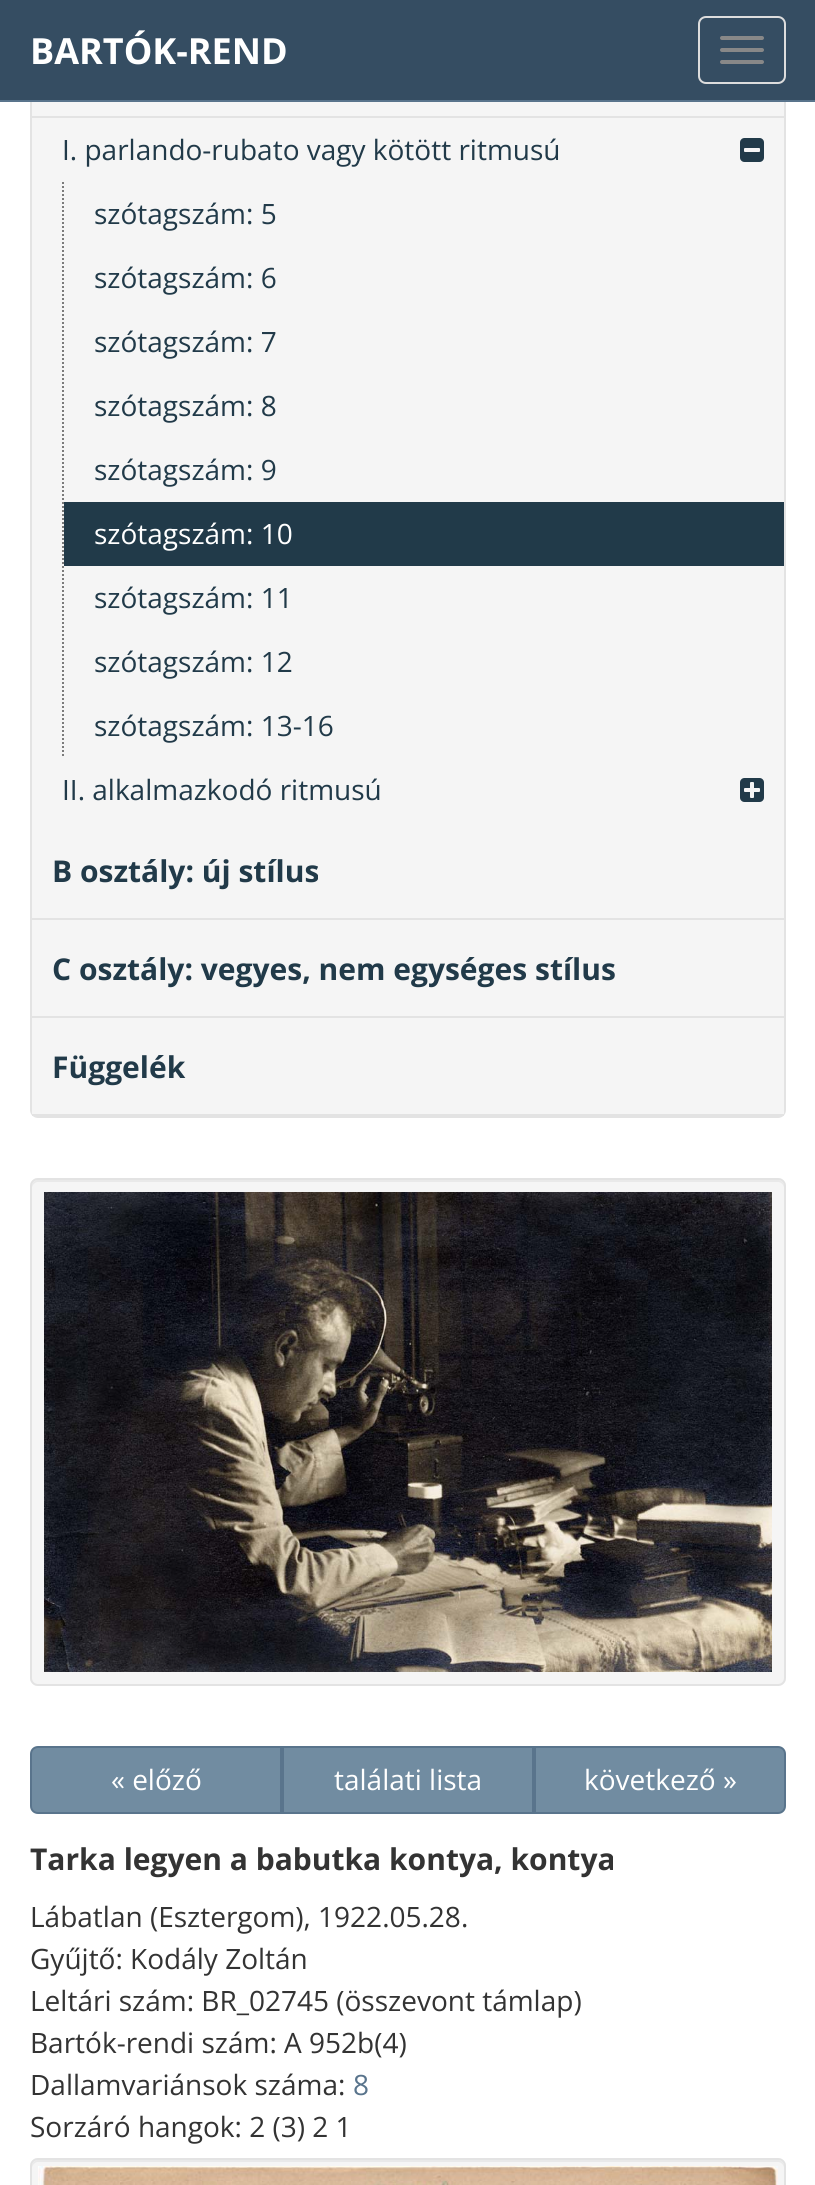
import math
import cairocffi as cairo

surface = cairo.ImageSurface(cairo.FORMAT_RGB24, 815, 2185)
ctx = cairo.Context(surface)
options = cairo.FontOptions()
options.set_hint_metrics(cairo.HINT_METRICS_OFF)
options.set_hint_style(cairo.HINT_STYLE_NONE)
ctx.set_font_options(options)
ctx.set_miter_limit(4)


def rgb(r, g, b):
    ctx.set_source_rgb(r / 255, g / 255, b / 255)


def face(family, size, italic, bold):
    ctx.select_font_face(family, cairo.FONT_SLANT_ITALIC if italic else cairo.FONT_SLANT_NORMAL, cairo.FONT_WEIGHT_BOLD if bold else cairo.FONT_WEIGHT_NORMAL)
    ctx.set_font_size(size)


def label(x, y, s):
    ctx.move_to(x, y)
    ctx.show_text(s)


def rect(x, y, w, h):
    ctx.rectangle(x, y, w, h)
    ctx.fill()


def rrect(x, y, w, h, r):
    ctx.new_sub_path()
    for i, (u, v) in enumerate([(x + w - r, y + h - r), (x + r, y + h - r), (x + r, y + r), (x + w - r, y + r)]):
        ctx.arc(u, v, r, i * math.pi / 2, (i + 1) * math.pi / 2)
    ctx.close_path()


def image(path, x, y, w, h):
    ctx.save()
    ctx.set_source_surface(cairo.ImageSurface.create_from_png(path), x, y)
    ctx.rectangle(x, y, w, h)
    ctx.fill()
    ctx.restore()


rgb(255, 255, 255)
ctx.paint()
rgb(245, 245, 245)
rrect(31, 19, 754, 1098, 7)
ctx.fill_preserve()
rgb(227, 227, 227)
ctx.stroke()
rgb(53, 77, 98)
rect(0, 0, 815, 100)
rgb(89, 116, 140)
rect(0, 100, 815, 2)
face('Open Sans', 36, 0, 1)
rgb(255, 255, 255)
label(30, 64, 'BARTÓK-REND')
rrect(699, 17, 86, 66, 7)
rgb(221, 221, 221)
ctx.stroke()
rgb(136, 136, 136)
rrect(720, 36, 44, 4, 2)
ctx.fill()
rrect(720, 48, 44, 4, 2)
ctx.fill()
rrect(720, 60, 44, 4, 2)
ctx.fill()
rgb(227, 227, 227)
rect(32, 116, 752, 2)
face('Open Sans', 28, 0, 0)
rgb(33, 58, 73)
label(62, 160, 'I. parlando-rubato vagy kötött ritmusú')
image('image0.png', 740, 138, 24, 24)
ctx.new_path()
ctx.move_to(63, 182)
ctx.line_to(63, 758)
rgb(123, 123, 123)
ctx.set_dash([2, 2])
ctx.stroke()
rgb(33, 58, 73)
label(94, 224, 'szótagszám: 5')
label(94, 288, 'szótagszám: 6')
label(94, 352, 'szótagszám: 7')
label(94, 416, 'szótagszám: 8')
label(94, 480, 'szótagszám: 9')
rect(64, 502, 720, 64)
rgb(255, 255, 255)
label(94, 544, 'szótagszám: 10')
rgb(33, 58, 73)
label(94, 608, 'szótagszám: 11')
label(94, 672, 'szótagszám: 12')
label(94, 736, 'szótagszám: 13-16')
label(62, 800, 'II. alkalmazkodó ritmusú')
image('image1.png', 740, 778, 24, 24)
rgb(227, 227, 227)
rect(32, 918, 752, 2)
face('Open Sans', 30, 0, 1)
rgb(33, 58, 73)
label(52, 882, 'B osztály: új stílus')
rgb(227, 227, 227)
rect(32, 1016, 752, 2)
rgb(33, 58, 73)
label(52, 980, 'C osztály: vegyes, nem egységes stílus')
rgb(245, 245, 245)
rect(32, 1111, 752, 3)
rgb(227, 227, 227)
rect(32, 1114, 752, 2)
rgb(33, 58, 73)
label(52, 1078, 'Függelék')
rgb(245, 245, 245)
rrect(30, 1178, 756, 508, 8)
ctx.fill()
rgb(233, 233, 233)
ctx.new_path()
ctx.move_to(38, 1182)
ctx.line_to(778, 1182)
ctx.curve_to(781, 1182, 784, 1185, 784, 1188)
ctx.line_to(784, 1186)
ctx.curve_to(784, 1183, 781, 1180, 778, 1180)
ctx.line_to(38, 1180)
ctx.curve_to(35, 1180, 32, 1183, 32, 1186)
ctx.line_to(32, 1188)
ctx.curve_to(32, 1185, 35, 1182, 38, 1182)
ctx.close_path()
ctx.fill()
rrect(31, 1179, 754, 506, 7)
rgb(227, 227, 227)
ctx.set_dash([])
ctx.stroke()
image('image2.png', 44, 1192, 728, 480)
rgb(113, 140, 161)
ctx.new_path()
ctx.move_to(38, 1747)
ctx.line_to(281, 1747)
ctx.line_to(281, 1813)
ctx.line_to(38, 1813)
ctx.curve_to(34, 1813, 31, 1810, 31, 1806)
ctx.line_to(31, 1754)
ctx.curve_to(31, 1750, 34, 1747, 38, 1747)
ctx.close_path()
ctx.fill_preserve()
rgb(89, 116, 140)
ctx.stroke()
face('Open Sans', 28, 0, 0)
rgb(255, 255, 255)
label(111, 1790, '« előző')
rgb(113, 140, 161)
ctx.rectangle(283, 1747, 250, 66)
ctx.fill_preserve()
rgb(89, 116, 140)
ctx.stroke()
rgb(255, 255, 255)
label(334, 1790, 'találati lista')
rgb(113, 140, 161)
ctx.new_path()
ctx.move_to(535, 1747)
ctx.line_to(778, 1747)
ctx.curve_to(782, 1747, 785, 1750, 785, 1754)
ctx.line_to(785, 1806)
ctx.curve_to(785, 1810, 782, 1813, 778, 1813)
ctx.line_to(535, 1813)
ctx.close_path()
ctx.fill_preserve()
rgb(89, 116, 140)
ctx.stroke()
rgb(255, 255, 255)
label(584, 1790, 'következő »')
face('Open Sans', 30, 0, 1)
rgb(51, 51, 51)
label(30, 1870, 'Tarka legyen a babutka kontya, kontya')
face('Open Sans', 28, 0, 0)
label(30, 1927, 'Lábatlan (Esztergom), 1922.05.28.')
label(30, 1969, 'Gyűjtő: Kodály Zoltán')
label(30, 2011, 'Leltári szám: BR_02745 (összevont támlap)')
label(30, 2053, 'Bartók-rendi szám: A 952b(4)')
label(30, 2095, 'Dallamvariánsok száma:')
rgb(89, 116, 140)
label(353, 2095, '8')
rgb(51, 51, 51)
label(30, 2137, 'Sorzáró hangok: 2 (3) 2 1')
rgb(245, 245, 245)
rrect(30, 2158, 756, 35, 8)
ctx.fill()
rgb(233, 233, 233)
ctx.new_path()
ctx.move_to(38, 2162)
ctx.line_to(778, 2162)
ctx.curve_to(781, 2162, 784, 2165, 784, 2168)
ctx.line_to(784, 2166)
ctx.curve_to(784, 2163, 781, 2160, 778, 2160)
ctx.line_to(38, 2160)
ctx.curve_to(35, 2160, 32, 2163, 32, 2166)
ctx.line_to(32, 2168)
ctx.curve_to(32, 2165, 35, 2162, 38, 2162)
ctx.close_path()
ctx.fill()
rrect(31, 2159, 754, 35, 7)
rgb(227, 227, 227)
ctx.stroke()
image('image3.png', 38, 2166, 740, 19)
surface.write_to_png('render.png')
